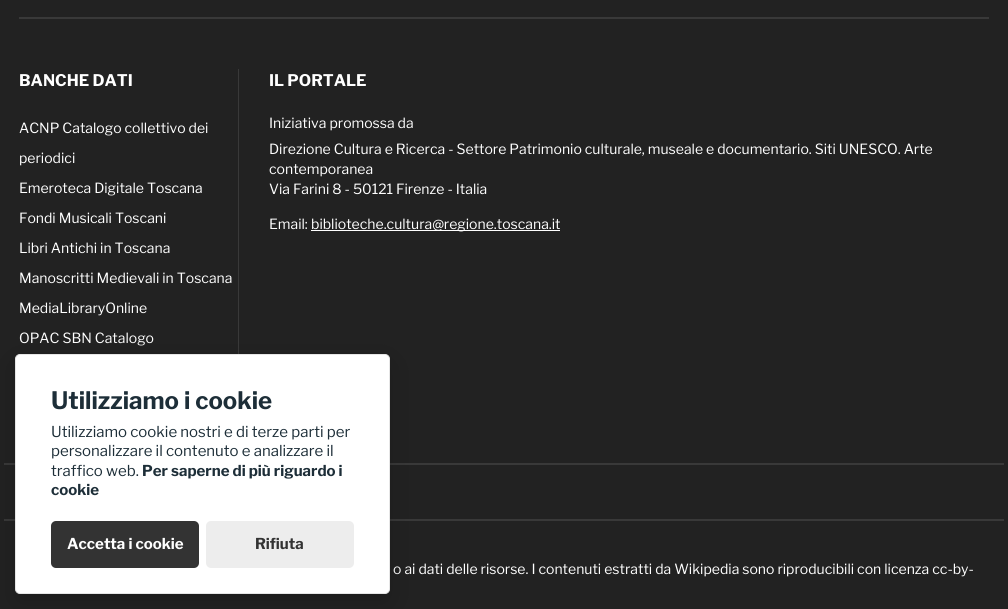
import math
import cairocffi as cairo

surface = cairo.ImageSurface(cairo.FORMAT_RGB24, 1008, 609)
ctx = cairo.Context(surface)
options = cairo.FontOptions()
options.set_hint_metrics(cairo.HINT_METRICS_OFF)
options.set_hint_style(cairo.HINT_STYLE_NONE)
ctx.set_font_options(options)
ctx.set_miter_limit(4)


def rgb(r, g, b):
    ctx.set_source_rgb(r / 255, g / 255, b / 255)


def face(family, size, italic, bold):
    ctx.select_font_face(family, cairo.FONT_SLANT_ITALIC if italic else cairo.FONT_SLANT_NORMAL, cairo.FONT_WEIGHT_BOLD if bold else cairo.FONT_WEIGHT_NORMAL)
    ctx.set_font_size(size)


def label(x, y, s):
    ctx.move_to(x, y)
    ctx.show_text(s)


def rect(x, y, w, h):
    ctx.rectangle(x, y, w, h)
    ctx.fill()


def rrect(x, y, w, h, r):
    ctx.new_sub_path()
    for i, (u, v) in enumerate([(x + w - r, y + h - r), (x + r, y + h - r), (x + r, y + r), (x + w - r, y + r)]):
        ctx.arc(u, v, r, i * math.pi / 2, (i + 1) * math.pi / 2)
    ctx.close_path()


def soft_shadow(x, y, w, h, r, blur, alpha):
    ctx.push_group_with_content(cairo.CONTENT_ALPHA)
    ctx.set_operator(cairo.OPERATOR_SOURCE)
    for i in range(15, -16, -2):
        e = blur * i / 6
        if min(w, h) + 2 * e > 0:
            ctx.set_source_rgba(0, 0, 0, alpha * math.erfc((i - 1) / 8.5) / 2)
            rrect(x - e, y - e, w + 2 * e, h + 2 * e, max(0, min(r + e + blur * .6, min(w, h) / 2 + e)))
            ctx.fill()
    ctx.mask(ctx.pop_group())


rgb(34, 34, 34)
ctx.paint()
rgb(57, 57, 57)
rect(19, 17, 970, 2)
rect(238, 69, 1, 285)
face('Libre Franklin', 16, 0, 1)
rgb(255, 255, 255)
label(19, 86, 'BANCHE DATI')
face('Libre Franklin', 14, 0, 0)
label(19, 133, 'ACNP Catalogo collettivo dei')
label(19, 163, 'periodici')
label(19, 193, 'Emeroteca Digitale Toscana')
label(19, 223, 'Fondi Musicali Toscani')
label(19, 253, 'Libri Antichi in Toscana')
label(19, 283, 'Manoscritti Medievali in Toscana')
label(19, 313, 'MediaLibraryOnline')
label(19, 343, 'OPAC SBN Catalogo')
face('Libre Franklin', 16, 0, 1)
label(269, 86, 'IL PORTALE')
face('Libre Franklin', 14, 0, 0)
label(269, 128, 'Iniziativa promossa da')
label(269, 154, 'Direzione Cultura e Ricerca - Settore Patrimonio culturale, museale e documentario. Siti UNESCO. Arte')
label(269, 174, 'contemporanea')
label(269, 194, 'Via Farini 8 - 50121 Firenze - Italia')
label(269, 229, 'Email:')
rect(311, 230, 249, 1)
label(311, 229, 'biblioteche.cultura@regione.toscana.it')
rgb(57, 57, 57)
rect(4, 463, 1000, 2)
rect(4, 519, 1000, 2)
rgb(255, 255, 255)
label(393, 574, 'o ai dati delle risorse. I contenuti estratti da Wikipedia sono riproducibili con licenza cc-by-')
rgb(2, 2, 3)
soft_shadow(15, 363, 375, 240, 5, 13, 0.2)
rgb(255, 255, 255)
rrect(15.5, 354.5, 374, 239, 4.5)
ctx.fill_preserve()
rgb(230, 230, 230)
ctx.set_line_width(1)
ctx.stroke()
face('Libre Franklin', 24, 0, 1)
rgb(29, 46, 56)
label(51, 409, 'Utilizziamo i cookie')
face('Libre Franklin', 15, 0, 0)
label(51, 437, 'Utilizziamo cookie nostri e di terze parti per')
label(51, 456, 'personalizzare il contenuto e analizzare il')
label(51, 476, 'traffico web.')
face('Libre Franklin', 15, 0, 1)
label(142, 476, 'Per saperne di più riguardo i')
label(51, 495, 'cookie')
rgb(51, 51, 51)
rrect(51, 521, 148, 47, 5)
ctx.fill()
rgb(255, 255, 255)
label(67, 549, 'Accetta i cookie')
rgb(237, 237, 237)
rrect(206, 521, 148, 47, 5)
ctx.fill()
rgb(51, 51, 51)
label(255, 549, 'Rifiuta')
surface.write_to_png('render.png')
